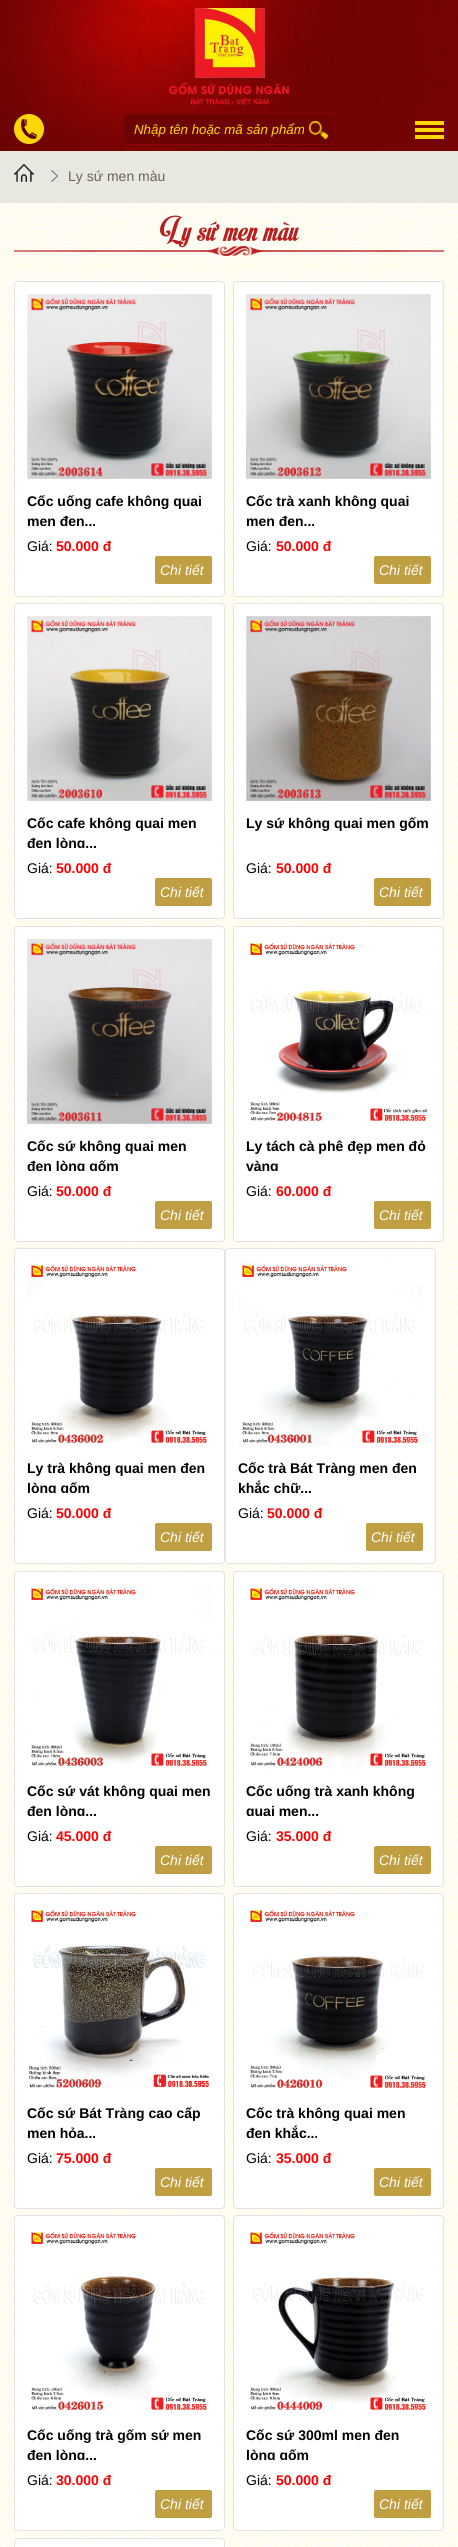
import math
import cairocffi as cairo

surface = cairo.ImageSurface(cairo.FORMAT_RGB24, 458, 2547)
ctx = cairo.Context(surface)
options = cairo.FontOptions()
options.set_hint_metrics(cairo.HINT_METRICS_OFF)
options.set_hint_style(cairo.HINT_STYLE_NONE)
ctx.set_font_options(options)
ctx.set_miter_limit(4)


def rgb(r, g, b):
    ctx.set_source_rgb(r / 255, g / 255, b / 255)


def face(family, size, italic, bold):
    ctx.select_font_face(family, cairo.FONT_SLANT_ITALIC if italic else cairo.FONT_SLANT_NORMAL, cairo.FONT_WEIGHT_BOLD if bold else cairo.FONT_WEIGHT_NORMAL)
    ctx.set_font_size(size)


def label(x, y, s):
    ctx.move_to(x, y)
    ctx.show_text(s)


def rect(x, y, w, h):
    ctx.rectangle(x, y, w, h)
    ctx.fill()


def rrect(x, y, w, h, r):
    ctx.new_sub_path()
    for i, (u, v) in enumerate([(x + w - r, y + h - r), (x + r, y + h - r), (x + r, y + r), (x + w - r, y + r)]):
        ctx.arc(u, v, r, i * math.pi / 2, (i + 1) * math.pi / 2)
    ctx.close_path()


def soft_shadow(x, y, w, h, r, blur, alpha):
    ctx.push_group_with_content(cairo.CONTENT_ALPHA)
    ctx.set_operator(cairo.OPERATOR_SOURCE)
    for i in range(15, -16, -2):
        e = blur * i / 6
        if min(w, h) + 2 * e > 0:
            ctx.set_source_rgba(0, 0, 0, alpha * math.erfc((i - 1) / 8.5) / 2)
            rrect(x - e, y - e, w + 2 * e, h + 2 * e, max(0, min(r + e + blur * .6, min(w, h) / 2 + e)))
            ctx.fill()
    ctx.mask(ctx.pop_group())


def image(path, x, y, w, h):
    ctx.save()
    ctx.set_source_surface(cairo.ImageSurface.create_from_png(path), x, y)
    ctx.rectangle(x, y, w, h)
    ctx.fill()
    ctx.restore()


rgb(255, 255, 255)
ctx.paint()
image('image0.png', 0, 203, 458, 2344)
image('image1.png', 0, 0, 458, 151)
image('image2.png', 14, 114, 30, 30)
image('image3.png', 169, 8, 120, 97)
rgb(137, 6, 4)
ctx.new_path()
ctx.move_to(124, 140)
ctx.line_to(124, 141)
ctx.curve_to(124, 143, 126, 145, 128, 145)
ctx.line_to(330, 145)
ctx.curve_to(332, 145, 334, 143, 334, 141)
ctx.line_to(334, 140)
ctx.curve_to(334, 142, 332, 144, 330, 144)
ctx.line_to(128, 144)
ctx.curve_to(126, 144, 124, 142, 124, 140)
ctx.close_path()
ctx.fill()
rgb(137, 6, 4)
soft_shadow(124, 113, 210, 30, 4, 1, 1)
rgb(109, 4, 3)
rrect(124, 114, 210, 30, 4)
ctx.fill()
ctx.save()
ctx.rectangle(134, 122, 170, 15)
ctx.clip()
face('Liberation Sans', 13.3, 1, 0)
rgb(252, 214, 5)
label(134, 134, 'Nhập tên hoặc mã sản phẩm')
ctx.restore()
image('image4.png', 309, 121, 19, 18)
image('image5.png', 415, 121, 29, 18)
rgb(232, 231, 224)
rect(0, 151, 458, 52)
image('image6.png', 14, 164, 20, 18)
image('image7.png', 51, 170, 7, 12)
face('Liberation Sans', 14, 0, 0)
rgb(105, 100, 89)
label(68, 181, 'Ly sứ men màu')
face('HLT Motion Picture', 35, 0, 0)
rgb(184, 31, 30)
label(160, 241, 'Ly sứ men màu')
image('image8.png', 14, 246, 430, 10)
rgb(255, 255, 255)
rrect(14.5, 281.5, 210, 315, 3.5)
ctx.fill_preserve()
rgb(227, 227, 227)
ctx.set_line_width(1)
ctx.stroke()
image('image9.png', 27, 294, 185, 185)
face('Liberation Sans', 14, 0, 1)
rgb(0, 0, 0)
label(27, 506, 'Cốc uống cafe không quai')
ctx.save()
ctx.rectangle(15, 491, 209, 35)
ctx.clip()
label(27, 526, 'men đen...')
ctx.restore()
face('Liberation Sans', 14, 0, 0)
label(27, 551, 'Giá:')
face('Liberation Sans', 14, 0, 1)
rgb(255, 0, 0)
label(56, 551, '50.000 đ')
rgb(192, 158, 66)
rrect(155, 556, 57, 28, 2)
ctx.fill()
face('Liberation Sans', 14, 1, 0)
rgb(255, 255, 255)
label(160, 575, 'Chi tiết')
rrect(233.5, 281.5, 210, 315, 3.5)
ctx.fill_preserve()
rgb(227, 227, 227)
ctx.stroke()
image('image10.png', 246, 294, 185, 185)
face('Liberation Sans', 14, 0, 1)
rgb(0, 0, 0)
label(246, 506, 'Cốc trà xanh không quai')
ctx.save()
ctx.rectangle(234, 491, 209, 35)
ctx.clip()
label(246, 526, 'men đen...')
ctx.restore()
face('Liberation Sans', 14, 0, 0)
label(246, 551, 'Giá:')
face('Liberation Sans', 14, 0, 1)
rgb(255, 0, 0)
label(276, 551, '50.000 đ')
rgb(192, 158, 66)
rrect(374, 556, 57, 28, 2)
ctx.fill()
face('Liberation Sans', 14, 1, 0)
rgb(255, 255, 255)
label(379, 575, 'Chi tiết')
rrect(14.5, 603.5, 210, 315, 3.5)
ctx.fill_preserve()
rgb(227, 227, 227)
ctx.stroke()
image('image11.png', 27, 616, 185, 185)
face('Liberation Sans', 14, 0, 1)
rgb(0, 0, 0)
label(27, 828, 'Cốc cafe không quai men')
ctx.save()
ctx.rectangle(15, 813, 209, 35)
ctx.clip()
label(27, 848, 'đen lòng...')
ctx.restore()
face('Liberation Sans', 14, 0, 0)
label(27, 873, 'Giá:')
face('Liberation Sans', 14, 0, 1)
rgb(255, 0, 0)
label(56, 873, '50.000 đ')
rgb(192, 158, 66)
rrect(155, 878, 57, 28, 2)
ctx.fill()
face('Liberation Sans', 14, 1, 0)
rgb(255, 255, 255)
label(160, 897, 'Chi tiết')
rrect(233.5, 603.5, 210, 315, 3.5)
ctx.fill_preserve()
rgb(227, 227, 227)
ctx.stroke()
image('image12.png', 246, 616, 185, 185)
face('Liberation Sans', 14, 0, 1)
rgb(0, 0, 0)
label(246, 828, 'Ly sứ không quai men gốm')
face('Liberation Sans', 14, 0, 0)
label(246, 873, 'Giá:')
face('Liberation Sans', 14, 0, 1)
rgb(255, 0, 0)
label(276, 873, '50.000 đ')
rgb(192, 158, 66)
rrect(374, 878, 57, 28, 2)
ctx.fill()
face('Liberation Sans', 14, 1, 0)
rgb(255, 255, 255)
label(379, 897, 'Chi tiết')
rrect(14.5, 926.5, 210, 315, 3.5)
ctx.fill_preserve()
rgb(227, 227, 227)
ctx.stroke()
image('image13.png', 27, 939, 185, 185)
face('Liberation Sans', 14, 0, 1)
rgb(0, 0, 0)
label(27, 1151, 'Cốc sứ không quai men')
ctx.save()
ctx.rectangle(15, 1136, 209, 35)
ctx.clip()
label(27, 1171, 'đen lòng gốm')
ctx.restore()
face('Liberation Sans', 14, 0, 0)
label(27, 1196, 'Giá:')
face('Liberation Sans', 14, 0, 1)
rgb(255, 0, 0)
label(56, 1196, '50.000 đ')
rgb(192, 158, 66)
rrect(155, 1201, 57, 28, 2)
ctx.fill()
face('Liberation Sans', 14, 1, 0)
rgb(255, 255, 255)
label(160, 1220, 'Chi tiết')
rrect(233.5, 926.5, 210, 315, 3.5)
ctx.fill_preserve()
rgb(227, 227, 227)
ctx.stroke()
image('image14.png', 250, 942, 178, 181)
face('Liberation Sans', 14, 0, 1)
rgb(0, 0, 0)
label(246, 1151, 'Ly tách cà phê đẹp men đỏ')
ctx.save()
ctx.rectangle(234, 1136, 209, 35)
ctx.clip()
label(246, 1171, 'vàng')
ctx.restore()
face('Liberation Sans', 14, 0, 0)
label(246, 1196, 'Giá:')
face('Liberation Sans', 14, 0, 1)
rgb(255, 0, 0)
label(276, 1196, '60.000 đ')
rgb(192, 158, 66)
rrect(374, 1201, 57, 28, 2)
ctx.fill()
face('Liberation Sans', 14, 1, 0)
rgb(255, 255, 255)
label(379, 1220, 'Chi tiết')
rrect(14.5, 1248.5, 210, 315, 3.5)
ctx.fill_preserve()
rgb(227, 227, 227)
ctx.stroke()
image('image15.png', 27, 1262, 180, 181)
face('Liberation Sans', 14, 0, 1)
rgb(0, 0, 0)
label(27, 1473, 'Ly trà không quai men đen')
ctx.save()
ctx.rectangle(15, 1458, 209, 35)
ctx.clip()
label(27, 1493, 'lòng gốm')
ctx.restore()
face('Liberation Sans', 14, 0, 0)
label(27, 1518, 'Giá:')
face('Liberation Sans', 14, 0, 1)
rgb(255, 0, 0)
label(56, 1518, '50.000 đ')
rgb(192, 158, 66)
rrect(155, 1523, 57, 28, 2)
ctx.fill()
face('Liberation Sans', 14, 1, 0)
rgb(255, 255, 255)
label(160, 1542, 'Chi tiết')
rrect(225.5, 1248.5, 210, 315, 3.5)
ctx.fill_preserve()
rgb(227, 227, 227)
ctx.stroke()
image('image16.png', 238, 1261, 185, 185)
face('Liberation Sans', 14, 0, 1)
rgb(0, 0, 0)
label(238, 1473, 'Cốc trà Bát Tràng men đen')
ctx.save()
ctx.rectangle(226, 1458, 209, 35)
ctx.clip()
label(238, 1493, 'khắc chữ...')
ctx.restore()
face('Liberation Sans', 14, 0, 0)
label(238, 1518, 'Giá:')
face('Liberation Sans', 14, 0, 1)
rgb(255, 0, 0)
label(267, 1518, '50.000 đ')
rgb(192, 158, 66)
rrect(366, 1523, 57, 28, 2)
ctx.fill()
face('Liberation Sans', 14, 1, 0)
rgb(255, 255, 255)
label(371, 1542, 'Chi tiết')
rrect(14.5, 1571.5, 210, 315, 3.5)
ctx.fill_preserve()
rgb(227, 227, 227)
ctx.stroke()
image('image17.png', 30, 1584, 182, 183)
face('Liberation Sans', 14, 0, 1)
rgb(0, 0, 0)
label(27, 1796, 'Cốc sứ vát không quai men')
ctx.save()
ctx.rectangle(15, 1781, 209, 35)
ctx.clip()
label(27, 1816, 'đen lòng...')
ctx.restore()
face('Liberation Sans', 14, 0, 0)
label(27, 1841, 'Giá:')
face('Liberation Sans', 14, 0, 1)
rgb(255, 0, 0)
label(56, 1841, '45.000 đ')
rgb(192, 158, 66)
rrect(155, 1846, 57, 28, 2)
ctx.fill()
face('Liberation Sans', 14, 1, 0)
rgb(255, 255, 255)
label(160, 1865, 'Chi tiết')
rrect(233.5, 1571.5, 210, 315, 3.5)
ctx.fill_preserve()
rgb(227, 227, 227)
ctx.stroke()
image('image18.png', 247, 1585, 179, 184)
face('Liberation Sans', 14, 0, 1)
rgb(0, 0, 0)
label(246, 1796, 'Cốc uống trà xanh không')
ctx.save()
ctx.rectangle(234, 1781, 209, 35)
ctx.clip()
label(246, 1816, 'quai men...')
ctx.restore()
face('Liberation Sans', 14, 0, 0)
label(246, 1841, 'Giá:')
face('Liberation Sans', 14, 0, 1)
rgb(255, 0, 0)
label(276, 1841, '35.000 đ')
rgb(192, 158, 66)
rrect(374, 1846, 57, 28, 2)
ctx.fill()
face('Liberation Sans', 14, 1, 0)
rgb(255, 255, 255)
label(379, 1865, 'Chi tiết')
rrect(14.5, 1893.5, 210, 315, 3.5)
ctx.fill_preserve()
rgb(227, 227, 227)
ctx.stroke()
image('image19.png', 29, 1909, 180, 180)
face('Liberation Sans', 14, 0, 1)
rgb(0, 0, 0)
label(27, 2118, 'Cốc sứ Bát Tràng cao cấp')
ctx.save()
ctx.rectangle(15, 2103, 209, 35)
ctx.clip()
label(27, 2138, 'men hỏa...')
ctx.restore()
face('Liberation Sans', 14, 0, 0)
label(27, 2163, 'Giá:')
face('Liberation Sans', 14, 0, 1)
rgb(255, 0, 0)
label(56, 2163, '75.000 đ')
rgb(192, 158, 66)
rrect(155, 2168, 57, 28, 2)
ctx.fill()
face('Liberation Sans', 14, 1, 0)
rgb(255, 255, 255)
label(160, 2187, 'Chi tiết')
rrect(233.5, 1893.5, 210, 315, 3.5)
ctx.fill_preserve()
rgb(227, 227, 227)
ctx.stroke()
image('image20.png', 250, 1909, 176, 179)
face('Liberation Sans', 14, 0, 1)
rgb(0, 0, 0)
label(246, 2118, 'Cốc trà không quai men')
ctx.save()
ctx.rectangle(234, 2103, 209, 35)
ctx.clip()
label(246, 2138, 'đen khắc...')
ctx.restore()
face('Liberation Sans', 14, 0, 0)
label(246, 2163, 'Giá:')
face('Liberation Sans', 14, 0, 1)
rgb(255, 0, 0)
label(276, 2163, '35.000 đ')
rgb(192, 158, 66)
rrect(374, 2168, 57, 28, 2)
ctx.fill()
face('Liberation Sans', 14, 1, 0)
rgb(255, 255, 255)
label(379, 2187, 'Chi tiết')
rrect(14.5, 2215.5, 210, 315, 3.5)
ctx.fill_preserve()
rgb(227, 227, 227)
ctx.stroke()
image('image21.png', 31, 2231, 176, 179)
face('Liberation Sans', 14, 0, 1)
rgb(0, 0, 0)
label(27, 2440, 'Cốc uống trà gốm sứ men')
ctx.save()
ctx.rectangle(15, 2425, 209, 35)
ctx.clip()
label(27, 2460, 'đen lòng...')
ctx.restore()
face('Liberation Sans', 14, 0, 0)
label(27, 2485, 'Giá:')
face('Liberation Sans', 14, 0, 1)
rgb(255, 0, 0)
label(56, 2485, '30.000 đ')
rgb(192, 158, 66)
rrect(155, 2490, 57, 28, 2)
ctx.fill()
face('Liberation Sans', 14, 1, 0)
rgb(255, 255, 255)
label(160, 2509, 'Chi tiết')
rrect(233.5, 2215.5, 210, 315, 3.5)
ctx.fill_preserve()
rgb(227, 227, 227)
ctx.stroke()
image('image22.png', 250, 2231, 176, 179)
face('Liberation Sans', 14, 0, 1)
rgb(0, 0, 0)
label(246, 2440, 'Cốc sứ 300ml men đen')
ctx.save()
ctx.rectangle(234, 2425, 209, 35)
ctx.clip()
label(246, 2460, 'lòng gốm')
ctx.restore()
face('Liberation Sans', 14, 0, 0)
label(246, 2485, 'Giá:')
face('Liberation Sans', 14, 0, 1)
rgb(255, 0, 0)
label(276, 2485, '50.000 đ')
rgb(192, 158, 66)
rrect(374, 2490, 57, 28, 2)
ctx.fill()
face('Liberation Sans', 14, 1, 0)
rgb(255, 255, 255)
label(379, 2509, 'Chi tiết')
rrect(14.5, 2538.5, 210, 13, 3.5)
ctx.fill_preserve()
rgb(227, 227, 227)
ctx.stroke()
surface.write_to_png('render.png')
